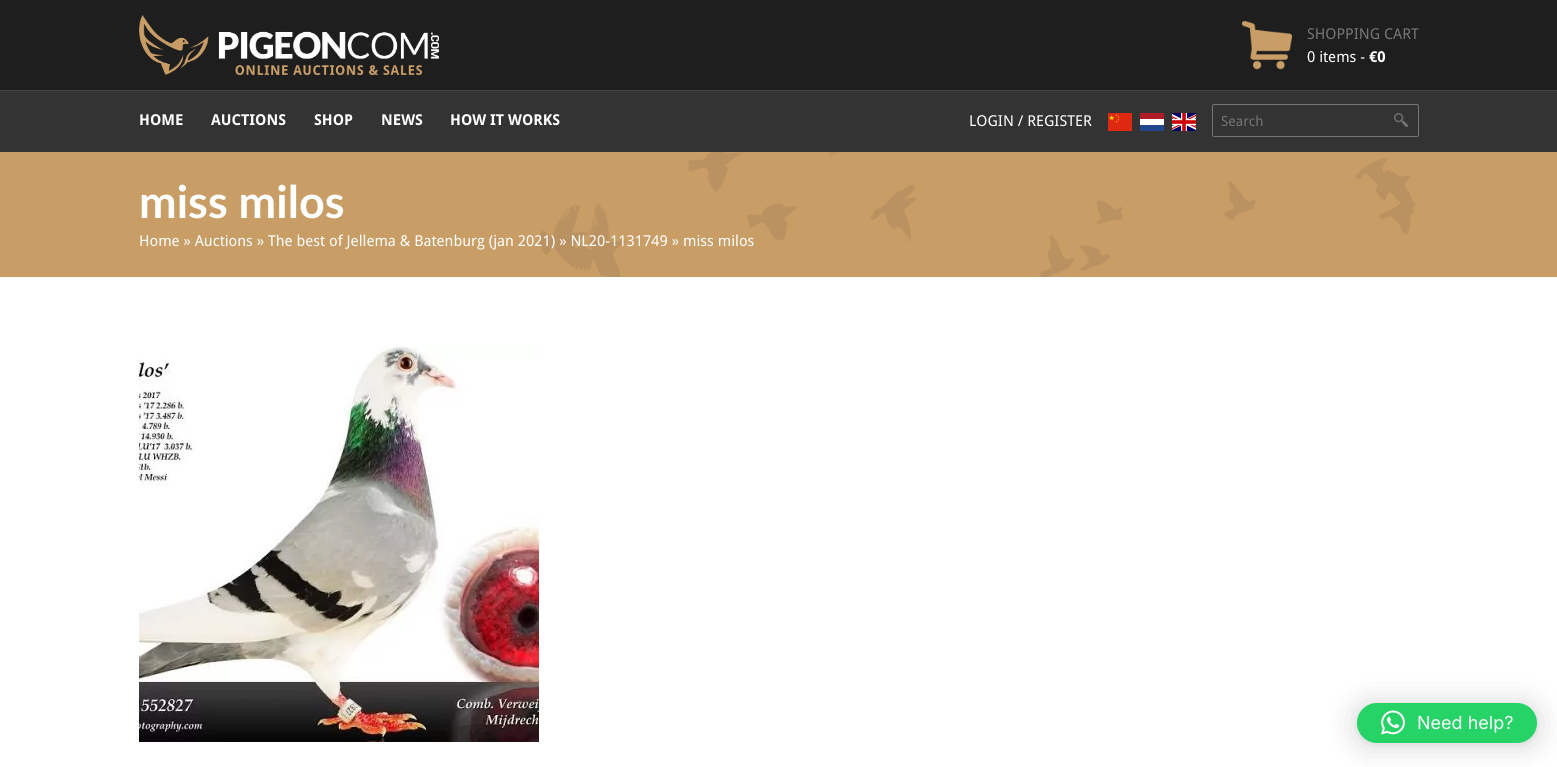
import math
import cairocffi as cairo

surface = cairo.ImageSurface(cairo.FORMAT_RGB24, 1557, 767)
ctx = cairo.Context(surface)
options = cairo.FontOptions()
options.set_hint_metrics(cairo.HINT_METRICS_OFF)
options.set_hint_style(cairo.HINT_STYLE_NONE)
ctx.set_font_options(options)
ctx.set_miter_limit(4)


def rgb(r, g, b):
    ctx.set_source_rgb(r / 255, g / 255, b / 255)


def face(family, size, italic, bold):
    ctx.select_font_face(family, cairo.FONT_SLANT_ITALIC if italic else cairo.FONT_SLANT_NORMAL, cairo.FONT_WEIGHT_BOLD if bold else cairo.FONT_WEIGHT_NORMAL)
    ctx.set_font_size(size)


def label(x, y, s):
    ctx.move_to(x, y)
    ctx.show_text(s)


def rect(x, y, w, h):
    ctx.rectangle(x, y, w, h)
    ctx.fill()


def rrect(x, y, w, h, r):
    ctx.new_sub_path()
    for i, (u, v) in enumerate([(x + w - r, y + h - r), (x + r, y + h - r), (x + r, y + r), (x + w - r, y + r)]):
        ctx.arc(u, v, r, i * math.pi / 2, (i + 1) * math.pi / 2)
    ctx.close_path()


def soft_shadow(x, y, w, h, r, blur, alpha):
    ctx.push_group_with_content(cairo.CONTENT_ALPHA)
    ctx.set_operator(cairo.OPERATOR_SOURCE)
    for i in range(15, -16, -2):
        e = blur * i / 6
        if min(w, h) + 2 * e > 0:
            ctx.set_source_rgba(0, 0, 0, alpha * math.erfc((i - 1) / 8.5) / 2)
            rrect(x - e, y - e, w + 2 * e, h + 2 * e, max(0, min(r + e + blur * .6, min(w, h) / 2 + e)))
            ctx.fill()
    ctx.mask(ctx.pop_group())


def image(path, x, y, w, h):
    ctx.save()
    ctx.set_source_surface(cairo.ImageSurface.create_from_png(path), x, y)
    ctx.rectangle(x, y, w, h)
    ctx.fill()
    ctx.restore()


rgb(30, 30, 30)
ctx.paint()
image('image0.png', 139, 15, 300, 60)
image('image1.png', 1242, 20, 50, 50)
face('Droid Sans', 15, 0, 0)
rgb(117, 117, 117)
label(1307, 39, 'SHOPPING CART')
rgb(255, 255, 255)
label(1307, 62, '0 items -')
face('Droid Sans', 15, 0, 1)
label(1369, 62, '€0')
rgb(51, 51, 51)
rect(0, 91, 1557, 61)
rgb(68, 68, 68)
rect(0, 90, 1557, 1)
rgb(255, 255, 255)
label(139, 125, 'HOME')
label(211, 125, 'AUCTIONS')
label(314, 125, 'SHOP')
label(381, 125, 'NEWS')
label(450, 125, 'HOW IT WORKS')
face('Droid Sans', 15, 0, 0)
label(969, 126, 'LOGIN / REGISTER')
image('image2.png', 1108, 113, 24, 18)
rect(1140, 119, 24, 6)
rgb(33, 70, 139)
rect(1140, 125, 24, 6)
rgb(174, 28, 40)
rect(1140, 113, 24, 6)
image('image3.png', 1172, 113, 24, 18)
rrect(1212.5, 104.5, 206, 32, 1.5)
rgb(117, 117, 117)
ctx.set_line_width(1)
ctx.stroke()
face('Droid Sans', 14, 0, 0)
label(1221, 126, 'Search')
image('image4.png', 1394, 113, 14, 14)
rgb(201, 157, 102)
rect(0, 152, 1557, 125)
image('image5.png', 539, 152, 877, 125)
face('Lato', 45, 0, 1)
rgb(255, 255, 255)
label(139, 218, 'miss milos')
face('Droid Sans', 15, 0, 0)
label(139, 246, 'Home » Auctions » The best of Jellema & Batenburg (jan 2021) » NL20-1131749 » miss milos')
rect(0, 277, 1557, 490)
image('image6.png', 139, 346, 400, 396)
rgb(0, 0, 0)
soft_shadow(1357, 705, 180, 40, 20, 16, 0.16)
soft_shadow(1357, 704, 180, 40, 20, 3, 0.06)
rgb(37, 211, 102)
rrect(1357, 703, 180, 40, 20)
ctx.fill()
image('image7.png', 1381, 710, 24, 25)
face('Inter', 18, 0, 0)
rgb(255, 255, 255)
label(1417, 729, 'Need help?')
surface.write_to_png('render.png')
